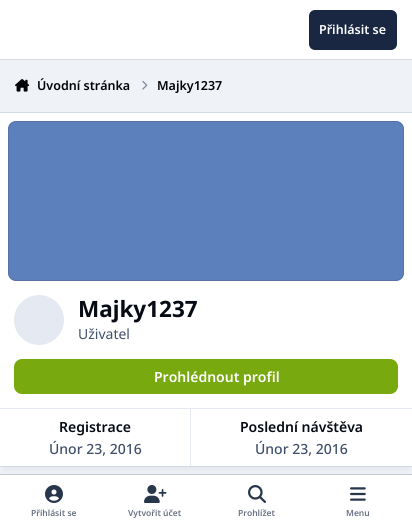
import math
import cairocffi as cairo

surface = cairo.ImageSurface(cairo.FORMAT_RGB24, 412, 530)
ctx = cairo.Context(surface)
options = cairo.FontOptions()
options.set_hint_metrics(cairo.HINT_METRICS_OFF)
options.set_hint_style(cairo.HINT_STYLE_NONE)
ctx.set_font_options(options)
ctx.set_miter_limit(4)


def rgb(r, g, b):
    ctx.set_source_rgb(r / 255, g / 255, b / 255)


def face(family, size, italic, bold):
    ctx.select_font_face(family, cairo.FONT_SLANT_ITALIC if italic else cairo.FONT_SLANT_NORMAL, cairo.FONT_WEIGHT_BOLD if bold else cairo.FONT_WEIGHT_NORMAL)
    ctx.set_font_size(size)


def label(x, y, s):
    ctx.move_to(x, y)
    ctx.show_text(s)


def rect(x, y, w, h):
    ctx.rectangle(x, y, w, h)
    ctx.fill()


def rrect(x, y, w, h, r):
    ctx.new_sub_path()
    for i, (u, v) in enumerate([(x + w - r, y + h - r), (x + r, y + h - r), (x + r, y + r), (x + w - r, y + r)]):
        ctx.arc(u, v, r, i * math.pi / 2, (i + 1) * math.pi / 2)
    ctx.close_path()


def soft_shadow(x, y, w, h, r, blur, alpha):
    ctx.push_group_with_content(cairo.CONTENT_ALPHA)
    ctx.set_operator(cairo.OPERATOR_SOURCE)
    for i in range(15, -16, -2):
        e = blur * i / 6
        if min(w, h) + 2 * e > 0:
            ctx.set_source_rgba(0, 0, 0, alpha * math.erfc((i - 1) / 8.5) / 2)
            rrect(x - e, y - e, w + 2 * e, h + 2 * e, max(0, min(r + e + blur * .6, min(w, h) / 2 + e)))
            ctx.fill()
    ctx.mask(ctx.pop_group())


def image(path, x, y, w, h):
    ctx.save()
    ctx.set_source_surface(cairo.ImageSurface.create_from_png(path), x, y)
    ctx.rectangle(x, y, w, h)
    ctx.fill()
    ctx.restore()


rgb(239, 242, 247)
ctx.paint()
rgb(255, 255, 255)
rect(0, 0, 412, 59)
rgb(218, 218, 220)
rect(0, 59, 412, 1)
rgb(25, 39, 67)
rrect(309, 10, 88, 40, 6)
ctx.fill()
face('Noto Sans SemiBold', 12.5, 0, 0)
rgb(255, 255, 255)
label(319, 34, 'Přihlásit se')
image('image0.png', 15, 79, 15, 13)
rgb(2, 3, 5)
label(37, 90, 'Úvodní stránka')
image('image1.png', 142, 80, 6, 10)
label(157, 90, 'Majky1237')
rgb(1, 3, 10)
soft_shadow(3, 121, 406, 349, 0, 3.5, 0.05)
rgb(255, 255, 255)
rect(0, 113, 412, 353)
rgb(213, 219, 230)
rect(0, 112, 412, 1)
rect(0, 466, 412, 1)
rgb(92, 128, 188)
rrect(8, 121, 396, 160, 8)
ctx.fill()
rrect(8.5, 121.5, 395, 159, 7.5)
ctx.set_source_rgba(0.251, 0.314, 0.42, 0.3)
ctx.set_line_width(1)
ctx.stroke()
rgb(229, 234, 242)
ctx.arc(39, 320, 25, 0, 2 * math.pi)
ctx.fill()
face('Noto Sans', 22.5, 0, 1)
rgb(6, 11, 20)
label(78, 317, 'Majky1237')
face('Noto Sans', 14, 0, 0)
rgb(64, 80, 107)
label(78, 339, 'Uživatel')
rgb(120, 169, 15)
rrect(14, 359, 384, 35, 8)
ctx.fill()
face('Noto Sans SemiBold', 14, 0, 0)
rgb(255, 255, 255)
label(154, 382, 'Prohlédnout profil')
rgb(229, 234, 242)
rect(0, 408, 412, 1)
ctx.save()
ctx.rectangle(0, 409, 412, 57)
ctx.clip()
ctx.rectangle(-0.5, 408.5, 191, 58)
ctx.stroke()
ctx.restore()
rgb(6, 11, 20)
label(59, 432, 'Registrace')
face('Noto Sans Medium', 14, 0, 0)
rgb(64, 80, 107)
label(49, 454, 'Únor 23, 2016')
face('Noto Sans SemiBold', 14, 0, 0)
rgb(6, 11, 20)
label(240, 432, 'Poslední návštěva')
face('Noto Sans Medium', 14, 0, 0)
rgb(64, 80, 107)
label(255, 454, 'Únor 23, 2016')
rgb(194, 201, 211)
rect(0, 474, 412, 1)
rgb(255, 255, 255)
rect(0, 475, 412, 55)
image('image2.png', 45, 485, 18, 18)
face('Noto Sans SemiBold', 8.5, 0, 0)
rgb(105, 114, 130)
label(31, 516, 'Přihlásit se')
image('image3.png', 144, 485, 23, 18)
label(128, 516, 'Vytvořit účet')
image('image4.png', 248, 485, 18, 18)
label(238, 516, 'Prohlížet')
image('image5.png', 350, 487, 16, 14)
label(346, 516, 'Menu')
surface.write_to_png('render.png')
